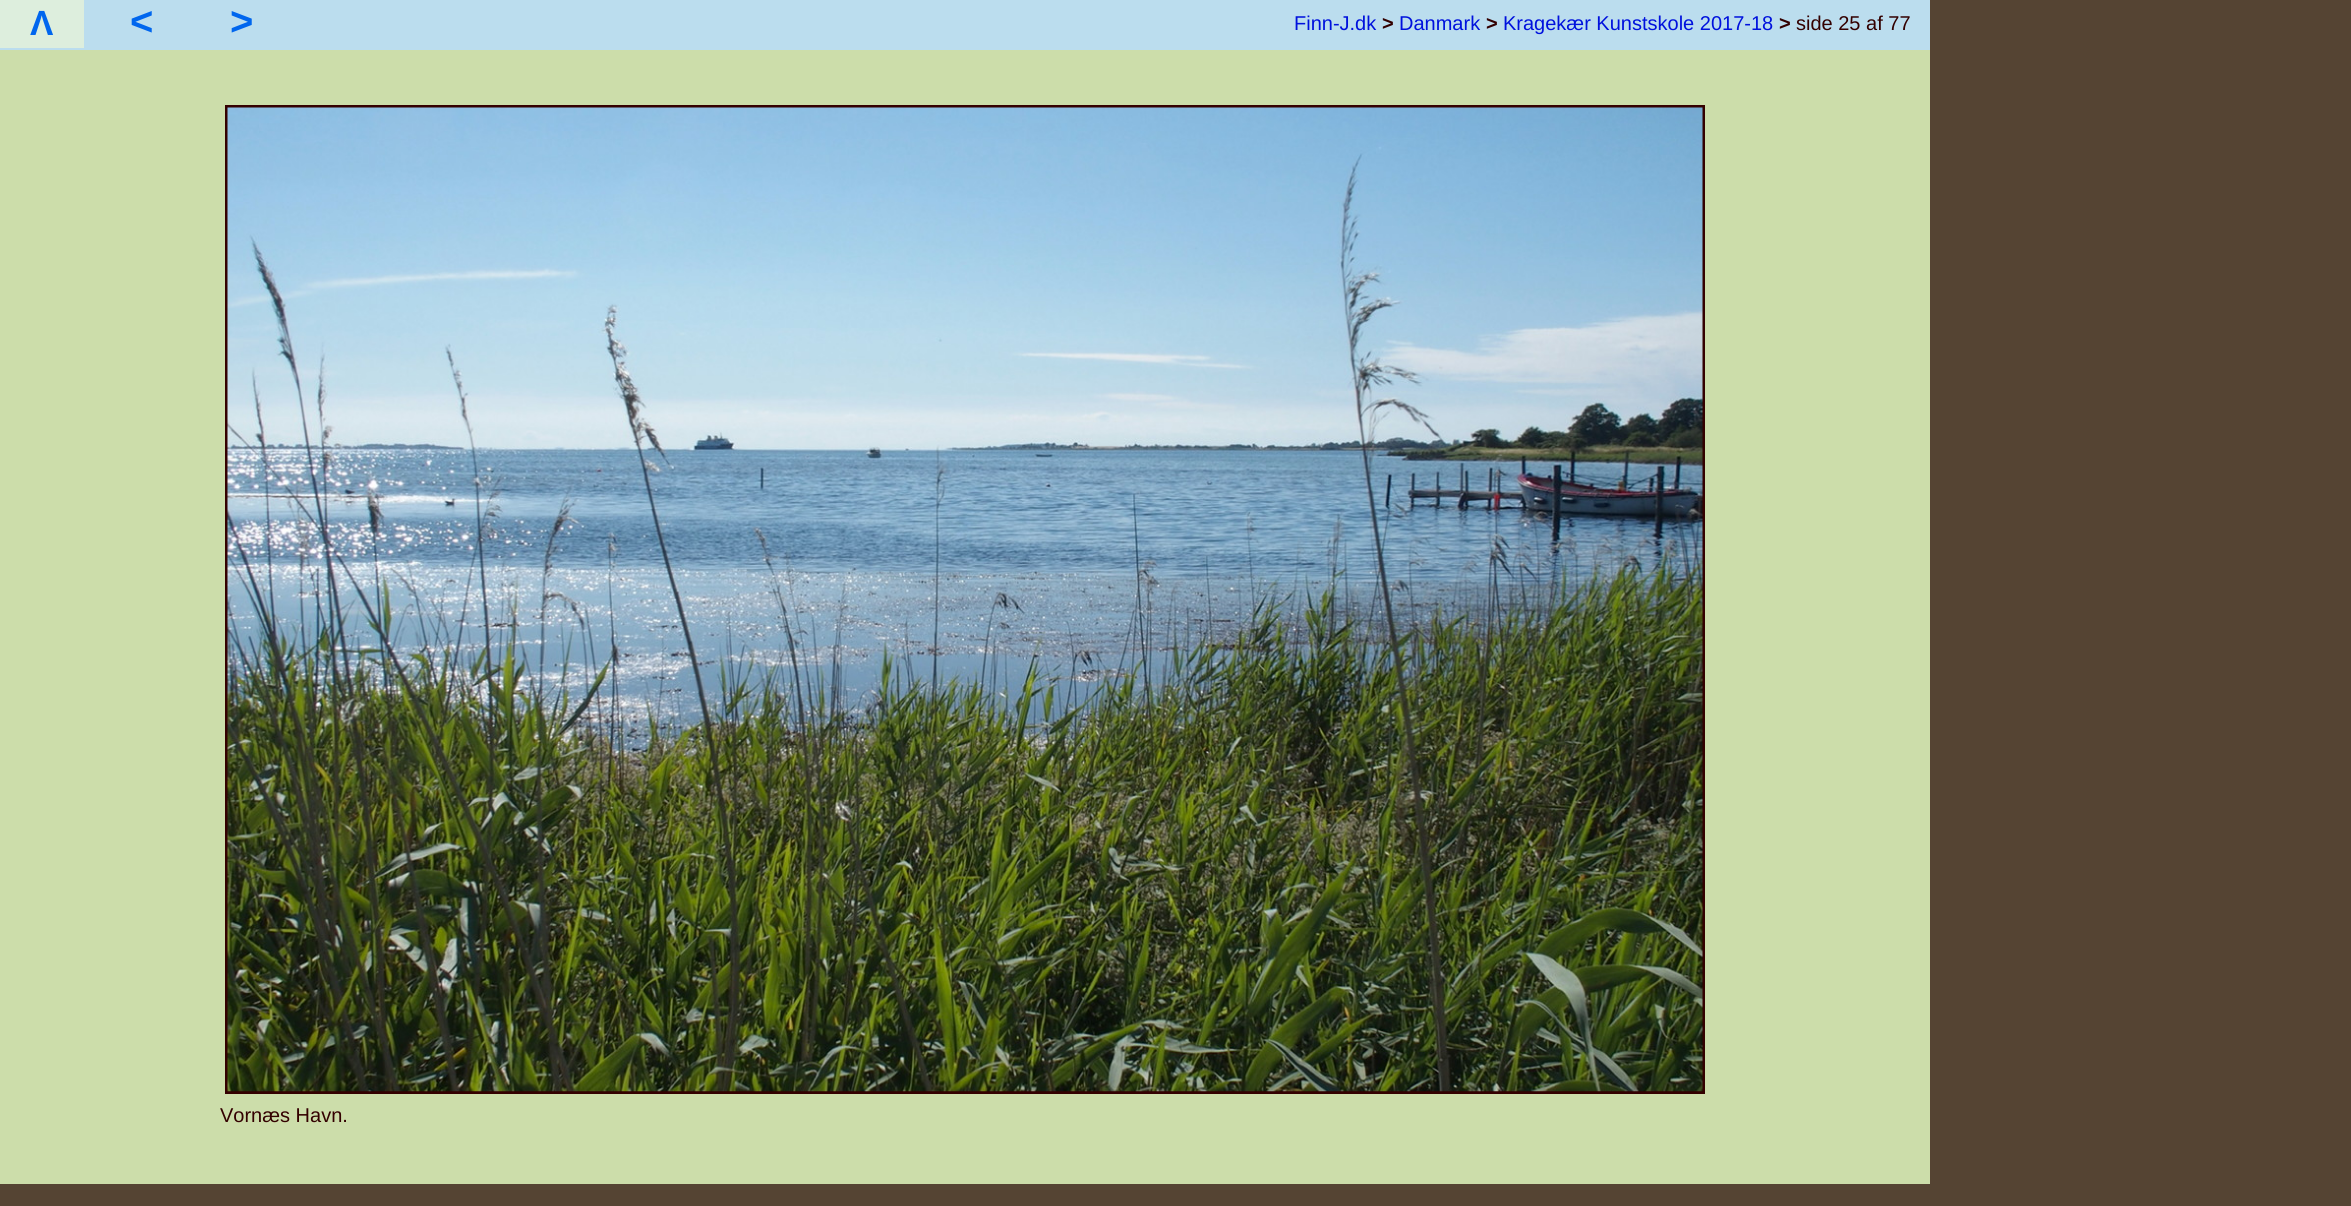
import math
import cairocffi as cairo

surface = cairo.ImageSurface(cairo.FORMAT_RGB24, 2351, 1206)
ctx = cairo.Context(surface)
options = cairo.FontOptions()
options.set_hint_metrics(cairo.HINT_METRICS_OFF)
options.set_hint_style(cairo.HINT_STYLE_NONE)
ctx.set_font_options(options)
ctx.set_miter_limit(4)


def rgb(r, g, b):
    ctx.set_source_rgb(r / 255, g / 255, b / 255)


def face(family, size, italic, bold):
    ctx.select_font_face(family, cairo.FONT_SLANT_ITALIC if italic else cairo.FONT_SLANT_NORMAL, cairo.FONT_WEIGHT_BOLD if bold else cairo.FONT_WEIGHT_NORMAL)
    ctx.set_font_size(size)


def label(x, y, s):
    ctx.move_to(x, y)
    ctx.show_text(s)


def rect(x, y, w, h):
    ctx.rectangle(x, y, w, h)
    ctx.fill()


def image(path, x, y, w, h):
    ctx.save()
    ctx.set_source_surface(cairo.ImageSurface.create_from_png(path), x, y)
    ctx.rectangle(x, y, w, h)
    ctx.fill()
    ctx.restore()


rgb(85, 68, 51)
ctx.paint()
rgb(204, 221, 170)
rect(0, 50, 1930, 1134)
rgb(187, 221, 238)
rect(0, 0, 1930, 50)
rgb(221, 238, 221)
rect(0, 0, 84, 48)
face('Liberation Sans', 35, 0, 1)
rgb(0, 102, 238)
label(30, 35, 'Λ')
face('Liberation Sans', 40, 0, 1)
label(130, 35, '<')
label(230, 35, '>')
face('Liberation Sans', 20, 0, 0)
rgb(0, 17, 221)
label(1294, 30, 'Finn-J.dk')
face('Liberation Sans', 20, 0, 1)
rgb(51, 0, 0)
label(1382, 30, '>')
face('Liberation Sans', 20, 0, 0)
rgb(0, 17, 221)
label(1399, 30, 'Danmark')
face('Liberation Sans', 20, 0, 1)
rgb(51, 0, 0)
label(1486, 30, '>')
face('Liberation Sans', 20, 0, 0)
rgb(0, 17, 221)
label(1503, 30, 'Kragekær Kunstskole 2017-18')
face('Liberation Sans', 20, 0, 1)
rgb(51, 0, 0)
label(1779, 30, '>')
face('Liberation Sans', 20, 0, 0)
label(1796, 30, 'side 25 af 77')
ctx.rectangle(226.5, 106.5, 1477, 986)
ctx.set_line_width(3)
ctx.stroke()
image('image0.png', 227, 107, 1476, 985)
label(220, 1122, 'Vornæs Havn.')
surface.write_to_png('render.png')
